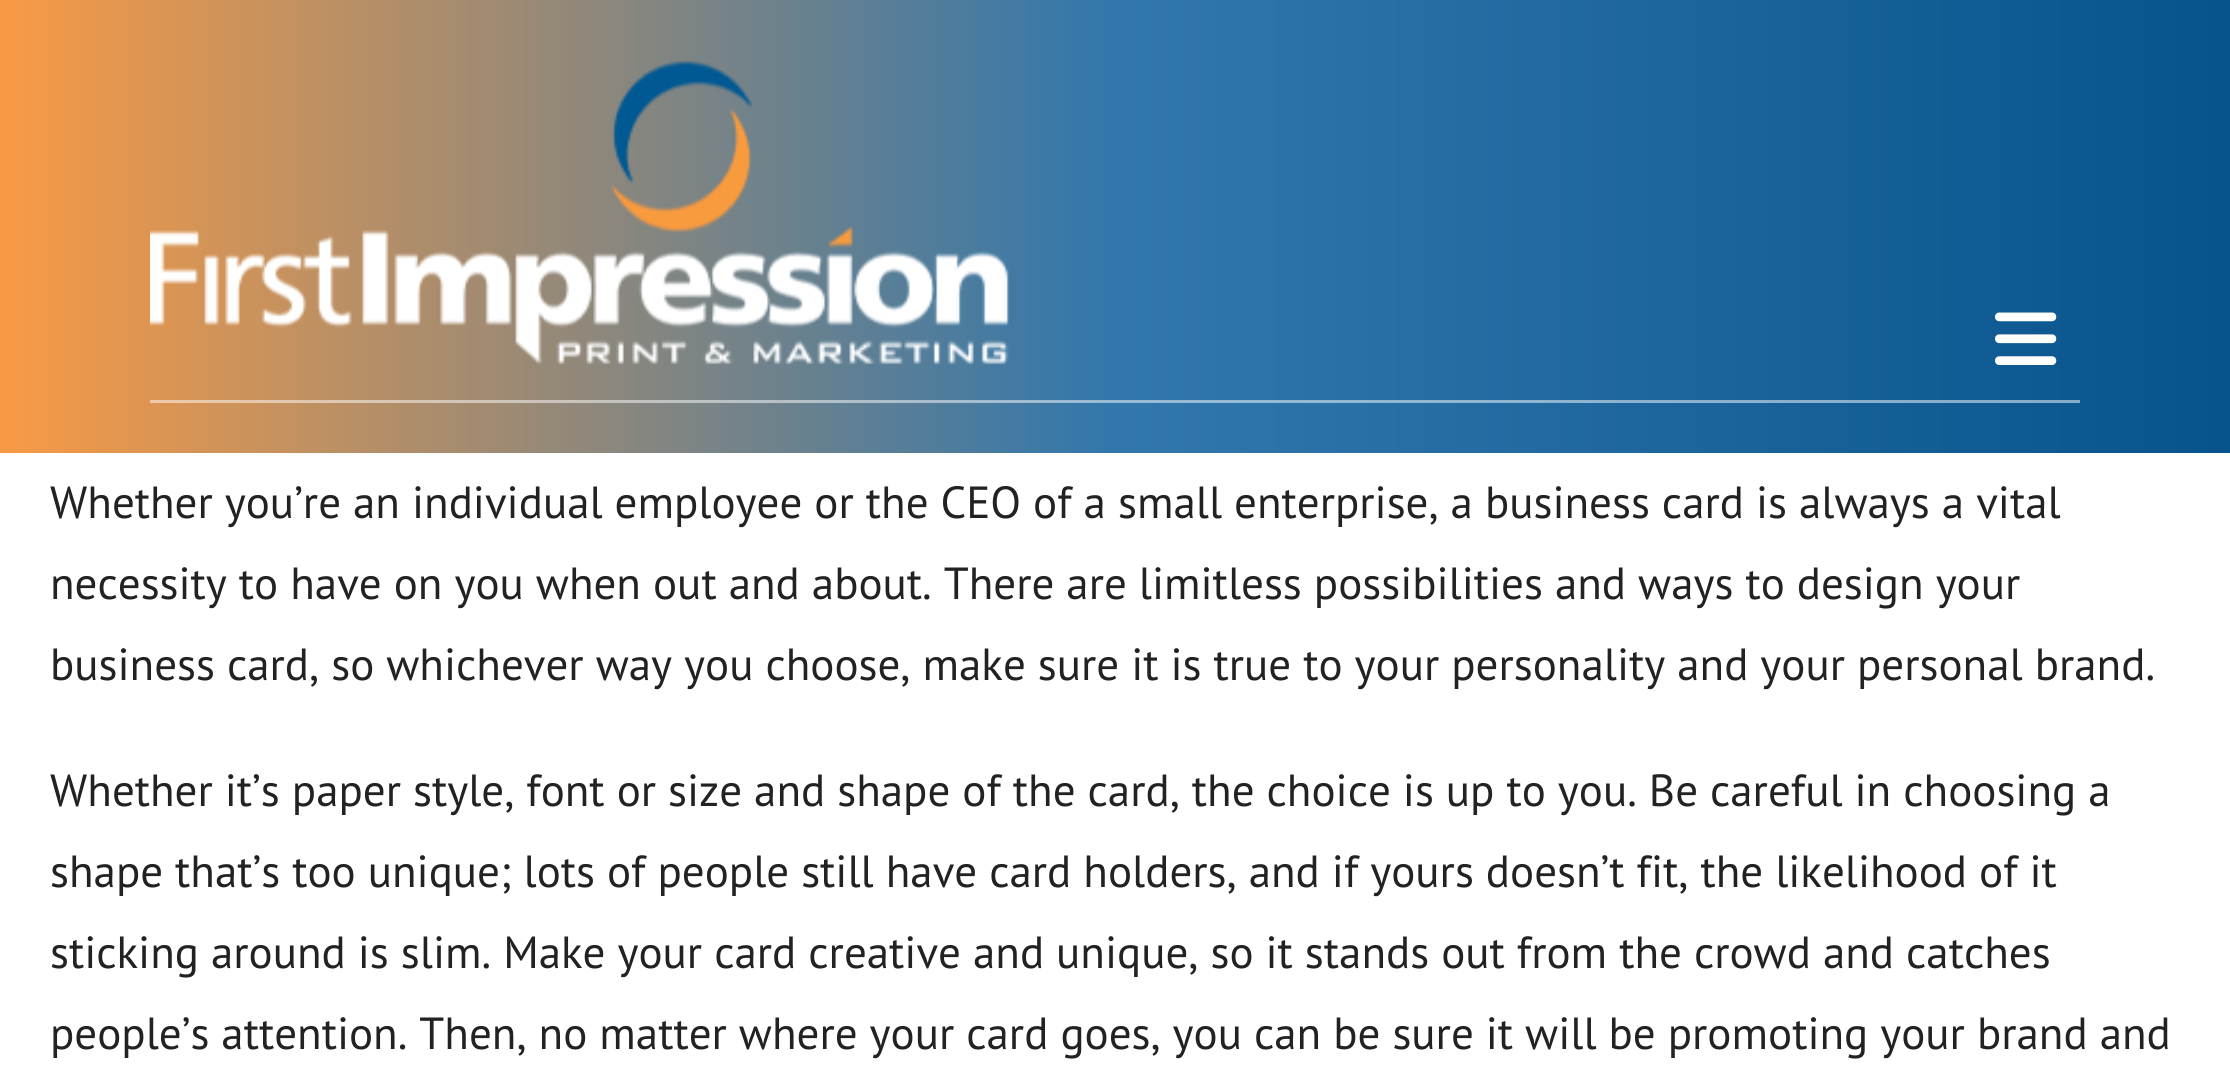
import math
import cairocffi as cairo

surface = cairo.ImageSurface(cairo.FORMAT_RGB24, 2230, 1072)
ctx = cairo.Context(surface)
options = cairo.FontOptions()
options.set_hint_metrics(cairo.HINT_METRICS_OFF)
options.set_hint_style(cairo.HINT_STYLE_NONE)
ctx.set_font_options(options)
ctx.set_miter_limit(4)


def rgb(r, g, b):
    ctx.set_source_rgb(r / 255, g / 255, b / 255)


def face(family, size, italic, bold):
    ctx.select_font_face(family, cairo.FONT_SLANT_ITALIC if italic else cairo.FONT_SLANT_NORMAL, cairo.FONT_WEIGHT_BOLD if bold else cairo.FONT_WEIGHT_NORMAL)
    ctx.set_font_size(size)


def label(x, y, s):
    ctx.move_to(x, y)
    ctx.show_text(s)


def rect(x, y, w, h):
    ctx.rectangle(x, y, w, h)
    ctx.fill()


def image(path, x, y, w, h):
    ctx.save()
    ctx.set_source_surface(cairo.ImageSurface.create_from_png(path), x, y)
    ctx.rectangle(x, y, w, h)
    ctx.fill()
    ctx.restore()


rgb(255, 255, 255)
ctx.paint()
gradient = cairo.LinearGradient(0, 164, 2230, 164)
gradient.add_color_stop_rgba(0, 0.973, 0.604, 0.267, 1)
gradient.add_color_stop_rgba(0.5, 0.192, 0.467, 0.675, 1)
gradient.add_color_stop_rgba(0.51, 0.192, 0.467, 0.675, 1)
gradient.add_color_stop_rgba(1, 0.027, 0.325, 0.549, 1)
ctx.set_source(gradient)
rect(0, 0, 2230, 453)
ctx.set_source_rgba(1, 1, 1, 0.5)
rect(150, 400, 1930, 3)
image('image0.png', 150, 61, 859, 304)
image('image1.png', 1995, 312, 62, 53)
face('PT Sans', 45, 0, 0)
rgb(34, 34, 34)
label(50, 518, 'Whether you’re an individual employee or the CEO of a small enterprise, a business card is always a vital')
label(50, 599, 'necessity to have on you when out and about. There are limitless possibilities and ways to design your')
label(50, 680, 'business card, so whichever way you choose, make sure it is true to your personality and your personal brand.')
label(50, 806, 'Whether it’s paper style, font or size and shape of the card, the choice is up to you. Be careful in choosing a')
label(50, 887, 'shape that’s too unique; lots of people still have card holders, and if yours doesn’t fit, the likelihood of it')
label(50, 968, 'sticking around is slim. Make your card creative and unique, so it stands out from the crowd and catches')
label(50, 1049, 'people’s attention. Then, no matter where your card goes, you can be sure it will be promoting your brand and')
surface.write_to_png('render.png')
